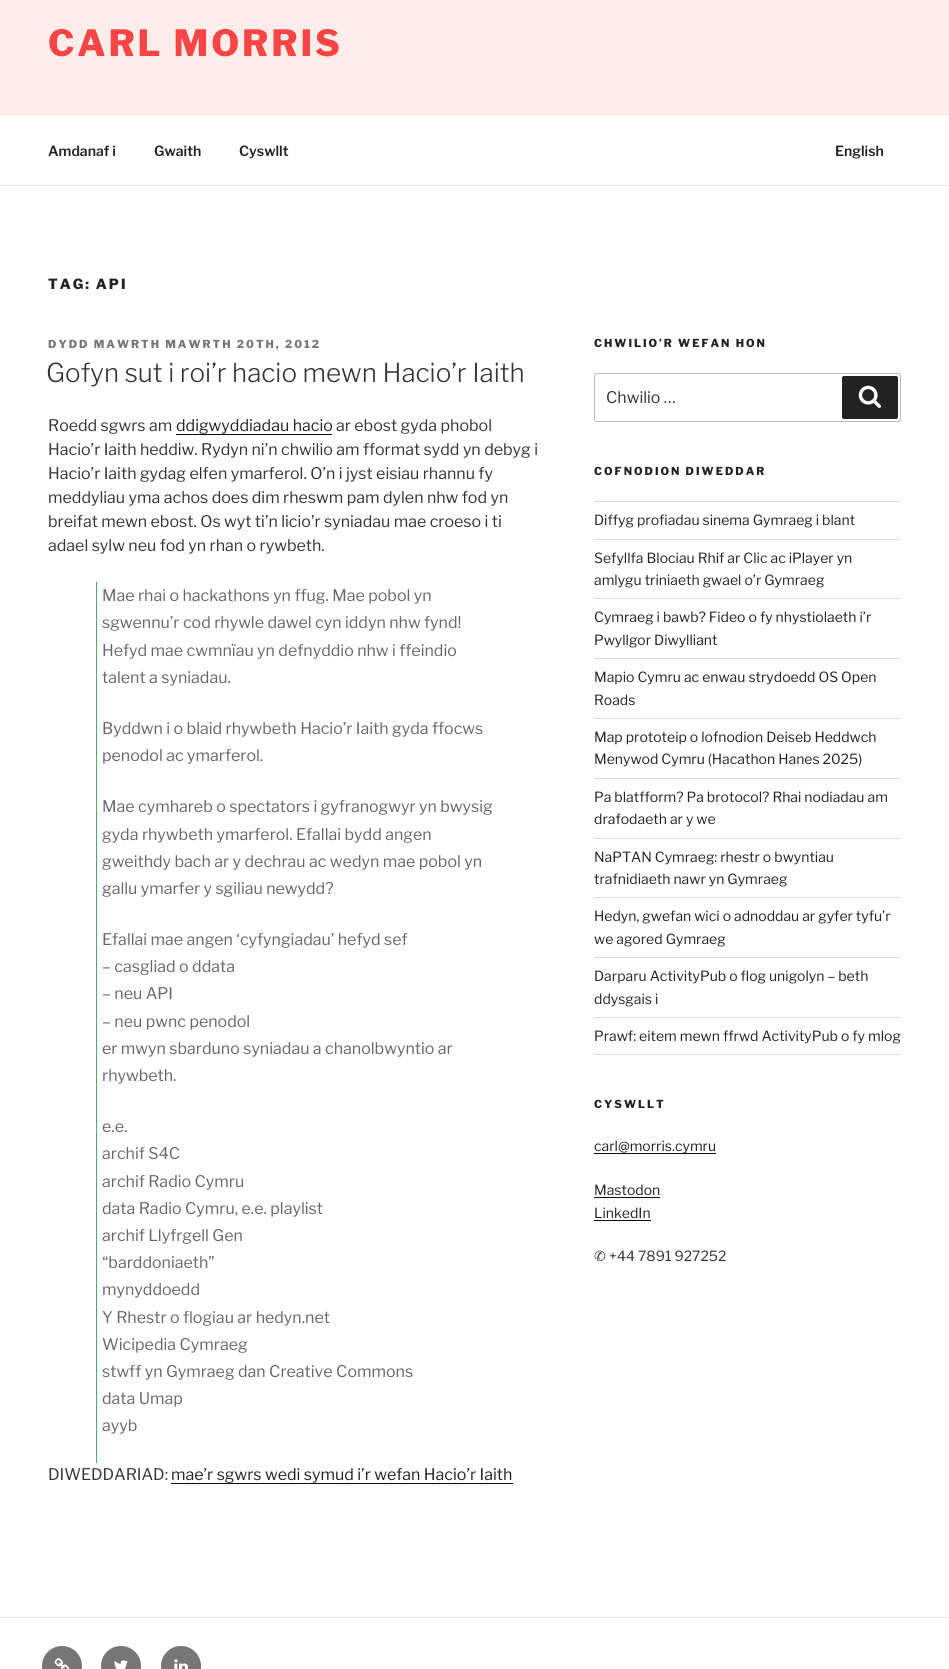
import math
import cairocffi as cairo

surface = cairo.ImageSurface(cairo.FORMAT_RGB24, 949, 1669)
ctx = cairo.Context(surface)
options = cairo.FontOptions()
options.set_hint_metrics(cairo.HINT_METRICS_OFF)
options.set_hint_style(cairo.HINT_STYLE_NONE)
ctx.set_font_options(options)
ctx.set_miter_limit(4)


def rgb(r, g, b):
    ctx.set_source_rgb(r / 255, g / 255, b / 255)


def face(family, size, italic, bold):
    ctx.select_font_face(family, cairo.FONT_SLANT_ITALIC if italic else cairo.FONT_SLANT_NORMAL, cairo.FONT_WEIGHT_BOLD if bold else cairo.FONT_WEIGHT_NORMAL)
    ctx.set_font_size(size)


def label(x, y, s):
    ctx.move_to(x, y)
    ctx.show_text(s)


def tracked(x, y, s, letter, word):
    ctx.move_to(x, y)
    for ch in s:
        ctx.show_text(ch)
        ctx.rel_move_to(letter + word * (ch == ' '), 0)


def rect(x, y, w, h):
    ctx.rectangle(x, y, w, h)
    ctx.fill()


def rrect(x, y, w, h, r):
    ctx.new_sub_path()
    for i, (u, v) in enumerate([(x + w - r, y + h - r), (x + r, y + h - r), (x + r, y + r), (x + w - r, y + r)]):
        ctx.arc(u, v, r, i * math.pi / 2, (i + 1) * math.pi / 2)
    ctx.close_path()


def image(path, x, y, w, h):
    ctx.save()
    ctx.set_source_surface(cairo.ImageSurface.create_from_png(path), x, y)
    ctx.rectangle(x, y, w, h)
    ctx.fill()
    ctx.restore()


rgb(255, 255, 255)
ctx.paint()
rgb(255, 237, 235)
rect(0, 0, 949, 114)
face('Libre Franklin Thin', 36, 0, 0)
rgb(247, 69, 69)
tracked(48, 56, 'CARL MORRIS', 2.9, 0)
rgb(238, 238, 238)
rect(0, 114, 949, 1)
rect(0, 185, 949, 1)
face('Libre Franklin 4 Thin', 14, 0, 0)
rgb(34, 34, 34)
label(48, 156, 'Amdanaf i')
label(154, 156, 'Gwaith')
label(239, 156, 'Cyswllt')
label(835, 156, 'English')
face('Libre Franklin Thin', 14, 0, 0)
tracked(48, 289, 'TAG: API', 2, 0)
face('Libre Franklin Thin', 11, 0, 0)
rgb(118, 118, 118)
tracked(48, 348, 'DYDD MAWRTH MAWRTH 20TH, 2012', 2, 0)
face('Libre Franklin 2 Thin', 26, 0, 0)
rgb(51, 51, 51)
label(46, 382, 'Gofyn sut i roi’r hacio mewn Hacio’r Iaith')
face('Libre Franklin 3 Thin', 16, 0, 0)
label(48, 431, 'Roedd sgwrs am')
rgb(34, 34, 34)
label(176, 431, 'ddigwyddiadau hacio')
rgb(15, 15, 15)
rect(176, 434, 156, 1)
rgb(51, 51, 51)
label(336, 431, 'ar ebost gyda phobol')
label(48, 455, 'Hacio’r Iaith heddiw. Rydyn ni’n chwilio am fformat sydd yn debyg i')
label(48, 479, 'Hacio’r Iaith gydag elfen ymarferol. O’n i jyst eisiau rhannu fy')
label(48, 503, 'meddyliau yma achos does dim rheswm pam dylen nhw fod yn')
label(48, 527, 'breifat mewn ebost. Os wyt ti’n licio’r syniadau mae croeso i ti')
label(48, 551, 'adael sylw neu fod yn rhan o rywbeth.')
rgb(68, 175, 105)
rect(96, 582, 1, 881)
rgb(102, 102, 102)
label(102, 601, 'Mae rhai o hackathons yn ffug. Mae pobol yn')
label(102, 628, 'sgwennu’r cod rhywle dawel cyn iddyn nhw fynd!')
label(102, 656, 'Hefyd mae cwmnïau yn defnyddio nhw i ffeindio')
label(102, 683, 'talent a syniadau.')
label(102, 734, 'Byddwn i o blaid rhywbeth Hacio’r Iaith gyda ffocws')
label(102, 761, 'penodol ac ymarferol.')
label(102, 812, 'Mae cymhareb o spectators i gyfranogwyr yn bwysig')
label(102, 840, 'gyda rhywbeth ymarferol. Efallai bydd angen')
label(102, 867, 'gweithdy bach ar y dechrau ac wedyn mae pobol yn')
label(102, 894, 'gallu ymarfer y sgiliau newydd?')
label(102, 945, 'Efallai mae angen ‘cyfyngiadau’ hefyd sef')
label(102, 972, '– casgliad o ddata')
label(102, 999, '– neu API')
label(102, 1027, '– neu pwnc penodol')
label(102, 1054, 'er mwyn sbarduno syniadau a chanolbwyntio ar')
label(102, 1081, 'rhywbeth.')
label(102, 1132, 'e.e.')
label(102, 1159, 'archif S4C')
label(102, 1187, 'archif Radio Cymru')
label(102, 1214, 'data Radio Cymru, e.e. playlist')
label(102, 1241, 'archif Llyfrgell Gen')
label(102, 1268, '“barddoniaeth”')
label(102, 1295, 'mynyddoedd')
label(102, 1323, 'Y Rhestr o flogiau ar hedyn.net')
label(102, 1350, 'Wicipedia Cymraeg')
label(102, 1377, 'stwff yn Gymraeg dan Creative Commons')
label(102, 1404, 'data Umap')
label(102, 1431, 'ayyb')
rgb(51, 51, 51)
label(48, 1480, 'DIWEDDARIAD:')
rgb(34, 34, 34)
label(171, 1480, 'mae’r sgwrs wedi symud i’r wefan Hacio’r Iaith')
rgb(15, 15, 15)
rect(171, 1483, 342, 1)
face('Libre Franklin Thin', 11, 0, 0)
rgb(34, 34, 34)
tracked(594, 347, 'CHWILIO’R WEFAN HON', 2, 0)
rrect(594.5, 373.5, 306, 48, 2.5)
rgb(187, 187, 187)
ctx.set_line_width(1)
ctx.stroke()
face('Libre Franklin 3 Thin', 16, 0, 0)
rgb(51, 51, 51)
label(606, 403, 'Chwilio …')
rgb(34, 34, 34)
rrect(842, 376, 56, 43, 2)
ctx.fill()
image('image0.png', 858, 385, 23, 23)
face('Libre Franklin Thin', 11, 0, 0)
tracked(594, 475, 'COFNODION DIWEDDAR', 2, 0)
rgb(221, 221, 221)
rect(594, 501, 307, 1)
rect(594, 539, 307, 1)
face('Libre Franklin 3 Thin', 14, 0, 0)
rgb(34, 34, 34)
label(594, 525, 'Diffyg profiadau sinema Gymraeg i blant')
rgb(221, 221, 221)
rect(594, 598, 307, 1)
rgb(34, 34, 34)
label(594, 563, 'Sefyllfa Blociau Rhif ar Clic ac iPlayer yn')
label(594, 585, 'amlygu triniaeth gwael o’r Gymraeg')
rgb(221, 221, 221)
rect(594, 658, 307, 1)
rgb(34, 34, 34)
label(594, 622, 'Cymraeg i bawb? Fideo o fy nhystiolaeth i’r')
label(594, 645, 'Pwyllgor Diwylliant')
rgb(221, 221, 221)
rect(594, 718, 307, 1)
rgb(34, 34, 34)
label(594, 682, 'Mapio Cymru ac enwau strydoedd OS Open')
label(594, 705, 'Roads')
rgb(221, 221, 221)
rect(594, 778, 307, 1)
rgb(34, 34, 34)
label(594, 742, 'Map prototeip o lofnodion Deiseb Heddwch')
label(594, 764, 'Menywod Cymru (Hacathon Hanes 2025)')
rgb(221, 221, 221)
rect(594, 838, 307, 1)
rgb(34, 34, 34)
label(594, 802, 'Pa blatfform? Pa brotocol? Rhai nodiadau am')
label(594, 824, 'drafodaeth ar y we')
rgb(221, 221, 221)
rect(594, 897, 307, 1)
rgb(34, 34, 34)
label(594, 862, 'NaPTAN Cymraeg: rhestr o bwyntiau')
label(594, 884, 'trafnidiaeth nawr yn Gymraeg')
rgb(221, 221, 221)
rect(594, 957, 307, 1)
rgb(34, 34, 34)
label(594, 921, 'Hedyn, gwefan wici o adnoddau ar gyfer tyfu’r')
label(594, 944, 'we agored Gymraeg')
rgb(221, 221, 221)
rect(594, 1017, 307, 1)
rgb(34, 34, 34)
label(594, 981, 'Darparu ActivityPub o flog unigolyn – beth')
label(594, 1004, 'ddysgais i')
rgb(221, 221, 221)
rect(594, 1054, 307, 1)
rgb(34, 34, 34)
label(594, 1041, 'Prawf: eitem mewn ffrwd ActivityPub o fy mlog')
face('Libre Franklin Thin', 11, 0, 0)
tracked(594, 1108, 'CYSWLLT', 2, 0)
rgb(15, 15, 15)
rect(594, 1153, 122, 1)
face('Libre Franklin 3 Thin', 14, 0, 0)
rgb(34, 34, 34)
label(594, 1151, 'carl@morris.cymru')
label(594, 1195, 'Mastodon')
rgb(15, 15, 15)
rect(594, 1197, 66, 1)
rgb(34, 34, 34)
label(594, 1218, 'LinkedIn')
rgb(15, 15, 15)
rect(594, 1220, 57, 1)
face('DejaVu Sans', 14, 0, 0)
rgb(51, 51, 51)
label(594, 1261, '✆')
face('Libre Franklin 3 Thin', 14, 0, 0)
label(609, 1261, '+44 7891 927252')
rgb(238, 238, 238)
rect(0, 1617, 949, 1)
rgb(118, 118, 118)
ctx.new_path()
ctx.arc(62, 1666, 20, 0, 2 * math.pi)
ctx.fill()
image('image1.png', 54, 1658, 16, 11)
ctx.arc(121, 1666, 20, 0, 2 * math.pi)
ctx.fill()
image('image2.png', 114, 1660, 14, 9)
ctx.arc(181, 1666, 20, 0, 2 * math.pi)
ctx.fill()
image('image3.png', 174, 1659, 14, 10)
surface.write_to_png('render.png')
